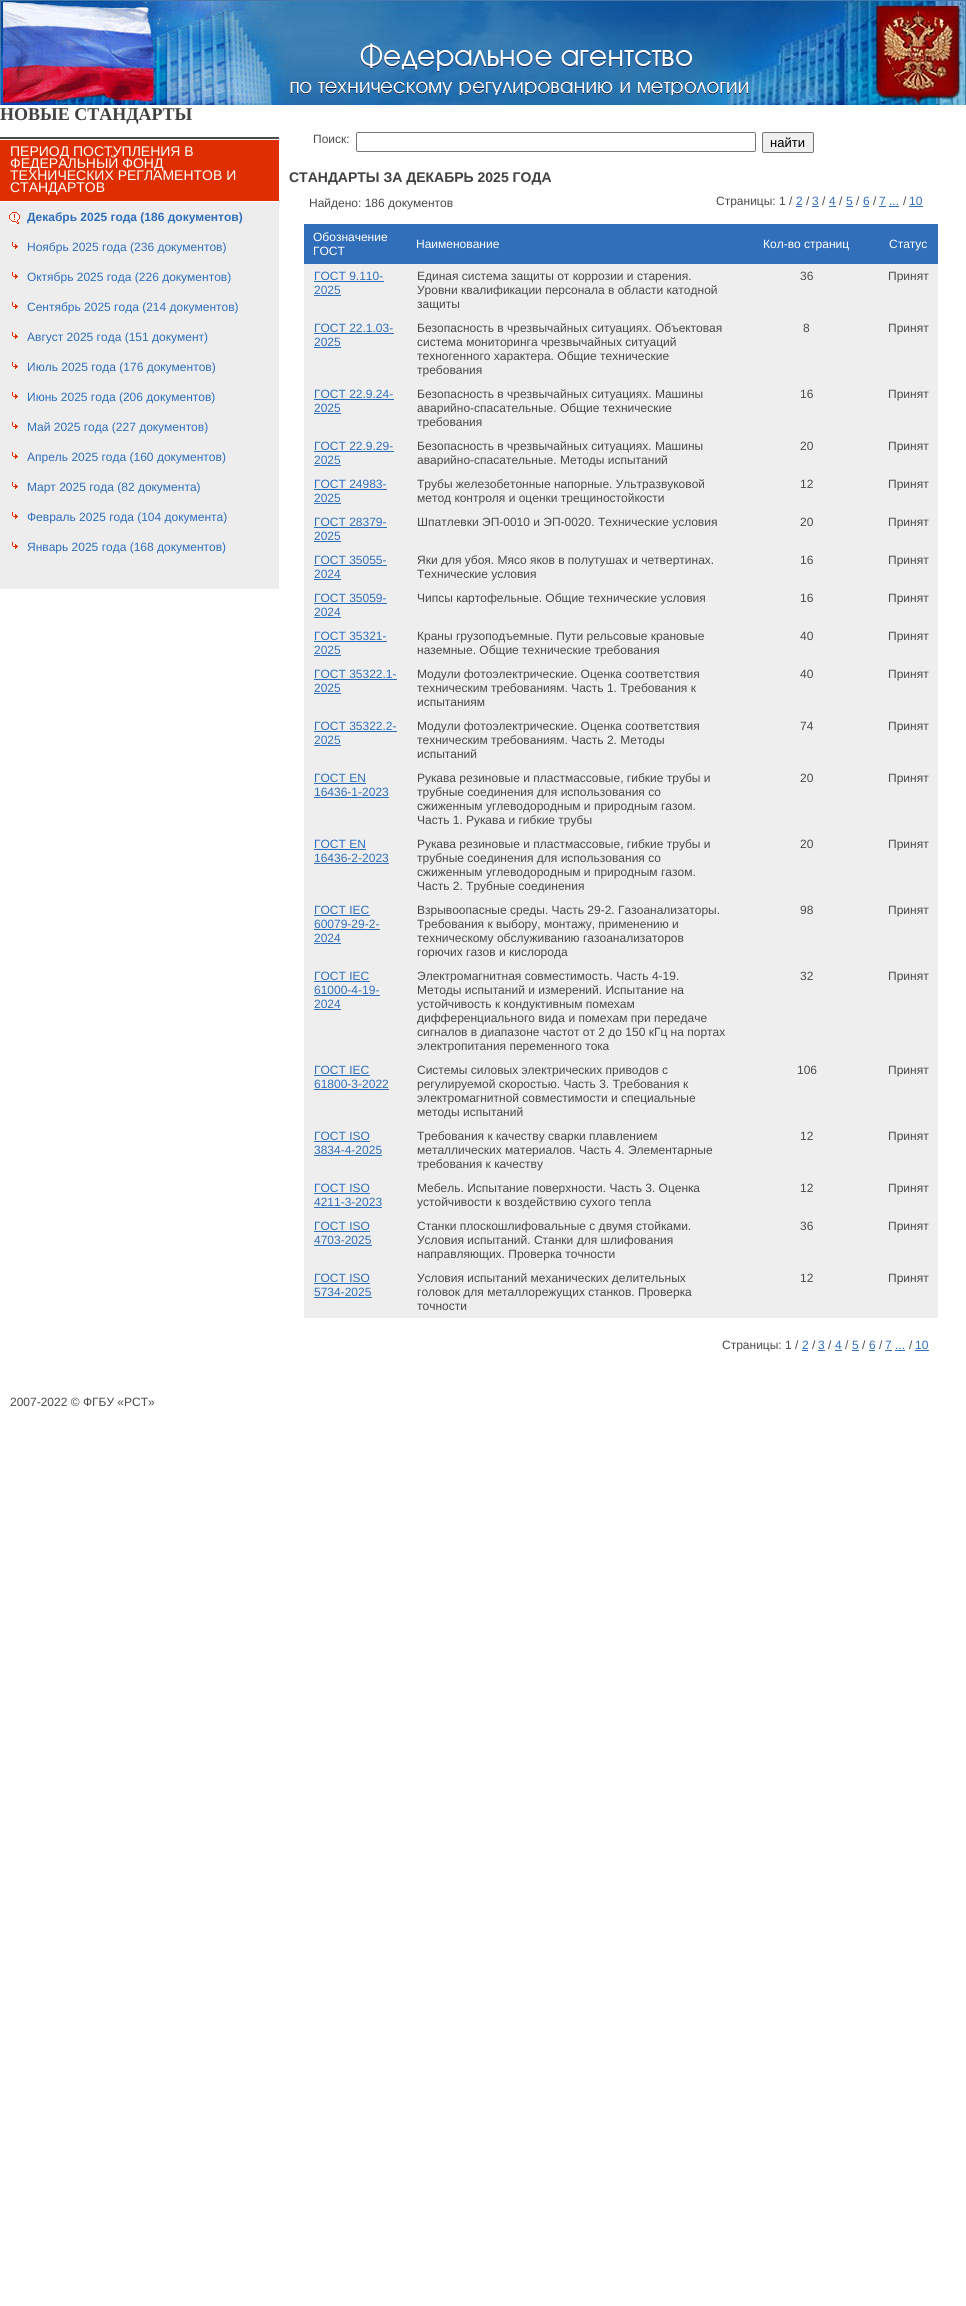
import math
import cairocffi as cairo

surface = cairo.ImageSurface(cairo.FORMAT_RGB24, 966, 2306)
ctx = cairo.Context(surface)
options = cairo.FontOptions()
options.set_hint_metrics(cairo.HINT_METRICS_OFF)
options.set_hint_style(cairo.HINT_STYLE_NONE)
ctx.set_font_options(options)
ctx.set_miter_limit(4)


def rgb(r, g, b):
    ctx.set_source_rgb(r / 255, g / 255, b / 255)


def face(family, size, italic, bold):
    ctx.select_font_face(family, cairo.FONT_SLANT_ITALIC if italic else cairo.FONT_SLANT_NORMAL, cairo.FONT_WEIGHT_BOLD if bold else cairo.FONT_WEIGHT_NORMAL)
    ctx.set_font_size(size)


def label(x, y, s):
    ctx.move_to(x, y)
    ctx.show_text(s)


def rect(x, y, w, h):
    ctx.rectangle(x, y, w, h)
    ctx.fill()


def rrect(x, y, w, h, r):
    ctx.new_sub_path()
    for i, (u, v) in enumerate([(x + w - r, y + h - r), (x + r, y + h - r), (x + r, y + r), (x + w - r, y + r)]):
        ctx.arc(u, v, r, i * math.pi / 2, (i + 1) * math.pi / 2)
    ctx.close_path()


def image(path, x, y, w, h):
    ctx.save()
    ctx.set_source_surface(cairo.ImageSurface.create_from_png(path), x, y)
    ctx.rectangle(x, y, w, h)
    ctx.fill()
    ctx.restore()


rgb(255, 255, 255)
ctx.paint()
image('image0.png', 0, 0, 296, 105)
image('image1.png', 296, 0, 371, 105)
image('image2.png', 667, 0, 299, 105)
image('image3.png', 290, 43, 458, 52)
face('Liberation Serif', 18, 0, 1)
rgb(64, 64, 64)
label(0, 120, 'НОВЫЕ СТАНДАРТЫ')
rgb(74, 74, 74)
rect(0, 137, 279, 2)
rgb(223, 47, 0)
rect(0, 140, 279, 61)
face('Liberation Sans', 14, 0, 0)
rgb(255, 255, 255)
label(10, 156, 'ПЕРИОД ПОСТУПЛЕНИЯ В')
label(10, 168, 'ФЕДЕРАЛЬНЫЙ ФОНД')
label(10, 180, 'ТЕХНИЧЕСКИХ РЕГЛАМЕНТОВ И')
label(10, 192, 'СТАНДАРТОВ')
rgb(237, 237, 237)
rect(0, 202, 279, 387)
image('image4.png', 9, 212, 11, 12)
face('Liberation Sans', 12, 0, 1)
rgb(49, 111, 187)
label(27, 221, 'Декабрь 2025 года (186 документов)')
image('image5.png', 12, 242, 6, 7)
face('Liberation Sans', 12, 0, 0)
label(27, 251, 'Ноябрь 2025 года (236 документов)')
image('image5.png', 12, 272, 6, 7)
label(27, 281, 'Октябрь 2025 года (226 документов)')
image('image5.png', 12, 302, 6, 7)
label(27, 311, 'Сентябрь 2025 года (214 документов)')
image('image5.png', 12, 332, 6, 7)
label(27, 341, 'Август 2025 года (151 документ)')
image('image5.png', 12, 362, 6, 7)
label(27, 371, 'Июль 2025 года (176 документов)')
image('image5.png', 12, 392, 6, 7)
label(27, 401, 'Июнь 2025 года (206 документов)')
image('image5.png', 12, 422, 6, 7)
label(27, 431, 'Май 2025 года (227 документов)')
image('image5.png', 12, 452, 6, 7)
label(27, 461, 'Апрель 2025 года (160 документов)')
image('image5.png', 12, 482, 6, 7)
label(27, 491, 'Март 2025 года (82 документа)')
image('image5.png', 12, 512, 6, 7)
label(27, 521, 'Февраль 2025 года (104 документа)')
image('image5.png', 12, 542, 6, 7)
label(27, 551, 'Январь 2025 года (168 документов)')
rgb(74, 74, 74)
label(313, 143, 'Поиск:')
rrect(356.5, 132.5, 399, 19, 1.5)
rgb(118, 118, 118)
ctx.set_line_width(1)
ctx.stroke()
rgb(239, 239, 239)
rrect(762.5, 132.5, 51, 20, 1.5)
ctx.fill_preserve()
rgb(118, 118, 118)
ctx.stroke()
face('Liberation Sans', 13, 0, 0)
rgb(0, 0, 0)
label(770, 147, 'найти')
face('Liberation Sans', 14, 0, 1)
rgb(64, 64, 64)
label(289, 182, 'СТАНДАРТЫ ЗА ДЕКАБРЬ 2025 ГОДА')
face('Liberation Sans', 12, 0, 0)
rgb(74, 74, 74)
label(309, 207, 'Найдено: 186 документов')
label(716, 205, 'Страницы: 1 /')
rgb(49, 111, 187)
label(796, 205, '2')
rect(796, 206, 6, 1)
rgb(74, 74, 74)
label(806, 205, '/')
rgb(49, 111, 187)
label(812, 205, '3')
rect(812, 206, 7, 1)
rgb(74, 74, 74)
label(822, 205, '/')
rgb(49, 111, 187)
label(829, 205, '4')
rect(829, 206, 7, 1)
rgb(74, 74, 74)
label(839, 205, '/')
rgb(49, 111, 187)
label(846, 205, '5')
rect(846, 206, 7, 1)
rgb(74, 74, 74)
label(856, 205, '/')
rgb(49, 111, 187)
label(863, 205, '6')
rect(863, 206, 6, 1)
rgb(74, 74, 74)
label(873, 205, '/')
rgb(49, 111, 187)
label(879, 205, '7 ...')
rect(879, 206, 7, 1)
rgb(74, 74, 74)
label(903, 205, '/')
rgb(49, 111, 187)
label(909, 205, '10')
rect(909, 206, 14, 1)
rect(889, 206, 10, 1)
rect(304, 224, 634, 40)
rgb(255, 255, 255)
label(313, 241, 'Обозначение')
label(313, 255, 'ГОСТ')
label(416, 248, 'Наименование')
label(763, 248, 'Кол-во страниц')
label(889, 248, 'Статус')
rgb(238, 238, 238)
rect(304, 264, 634, 1054)
rgb(49, 111, 187)
label(314, 280, 'ГОСТ 9.110-')
rect(314, 281, 70, 1)
label(314, 294, '2025')
rect(314, 295, 27, 1)
rgb(74, 74, 74)
label(417, 280, 'Единая система защиты от коррозии и старения.')
label(417, 294, 'Уровни квалификации персонала в области катодной')
label(417, 308, 'защиты')
label(800, 280, '36')
label(888, 280, 'Принят')
rgb(49, 111, 187)
label(314, 332, 'ГОСТ 22.1.03-')
rect(314, 333, 80, 1)
label(314, 346, '2025')
rect(314, 347, 27, 1)
rgb(74, 74, 74)
label(417, 332, 'Безопасность в чрезвычайных ситуациях. Объектовая')
label(417, 346, 'система мониторинга чрезвычайных ситуаций')
label(417, 360, 'техногенного характера. Общие технические')
label(417, 374, 'требования')
label(803, 332, '8')
label(888, 332, 'Принят')
rgb(49, 111, 187)
label(314, 398, 'ГОСТ 22.9.24-')
rect(314, 399, 80, 1)
label(314, 412, '2025')
rect(314, 413, 27, 1)
rgb(74, 74, 74)
label(417, 398, 'Безопасность в чрезвычайных ситуациях. Машины')
label(417, 412, 'аварийно-спасательные. Общие технические')
label(417, 426, 'требования')
label(800, 398, '16')
label(888, 398, 'Принят')
rgb(49, 111, 187)
label(314, 450, 'ГОСТ 22.9.29-')
rect(314, 451, 80, 1)
label(314, 464, '2025')
rect(314, 465, 27, 1)
rgb(74, 74, 74)
label(417, 450, 'Безопасность в чрезвычайных ситуациях. Машины')
label(417, 464, 'аварийно-спасательные. Методы испытаний')
label(800, 450, '20')
label(888, 450, 'Принят')
rgb(49, 111, 187)
label(314, 488, 'ГОСТ 24983-')
rect(314, 489, 73, 1)
label(314, 502, '2025')
rect(314, 503, 27, 1)
rgb(74, 74, 74)
label(417, 488, 'Трубы железобетонные напорные. Ультразвуковой')
label(417, 502, 'метод контроля и оценки трещиностойкости')
label(800, 488, '12')
label(888, 488, 'Принят')
rgb(49, 111, 187)
label(314, 526, 'ГОСТ 28379-')
rect(314, 527, 73, 1)
label(314, 540, '2025')
rect(314, 541, 27, 1)
rgb(74, 74, 74)
label(417, 526, 'Шпатлевки ЭП-0010 и ЭП-0020. Технические условия')
label(800, 526, '20')
label(888, 526, 'Принят')
rgb(49, 111, 187)
label(314, 564, 'ГОСТ 35055-')
rect(314, 565, 73, 1)
label(314, 578, '2024')
rect(314, 579, 27, 1)
rgb(74, 74, 74)
label(417, 564, 'Яки для убоя. Мясо яков в полутушах и четвертинах.')
label(417, 578, 'Технические условия')
label(800, 564, '16')
label(888, 564, 'Принят')
rgb(49, 111, 187)
label(314, 602, 'ГОСТ 35059-')
rect(314, 603, 73, 1)
label(314, 616, '2024')
rect(314, 617, 27, 1)
rgb(74, 74, 74)
label(417, 602, 'Чипсы картофельные. Общие технические условия')
label(800, 602, '16')
label(888, 602, 'Принят')
rgb(49, 111, 187)
label(314, 640, 'ГОСТ 35321-')
rect(314, 641, 73, 1)
label(314, 654, '2025')
rect(314, 655, 27, 1)
rgb(74, 74, 74)
label(417, 640, 'Краны грузоподъемные. Пути рельсовые крановые')
label(417, 654, 'наземные. Общие технические требования')
label(800, 640, '40')
label(888, 640, 'Принят')
rgb(49, 111, 187)
label(314, 678, 'ГОСТ 35322.1-')
rect(314, 679, 83, 1)
label(314, 692, '2025')
rect(314, 693, 27, 1)
rgb(74, 74, 74)
label(417, 678, 'Модули фотоэлектрические. Оценка соответствия')
label(417, 692, 'техническим требованиям. Часть 1. Требования к')
label(417, 706, 'испытаниям')
label(800, 678, '40')
label(888, 678, 'Принят')
rgb(49, 111, 187)
label(314, 730, 'ГОСТ 35322.2-')
rect(314, 731, 83, 1)
label(314, 744, '2025')
rect(314, 745, 27, 1)
rgb(74, 74, 74)
label(417, 730, 'Модули фотоэлектрические. Оценка соответствия')
label(417, 744, 'техническим требованиям. Часть 2. Методы')
label(417, 758, 'испытаний')
label(800, 730, '74')
label(888, 730, 'Принят')
rgb(49, 111, 187)
label(314, 782, 'ГОСТ EN')
rect(314, 783, 52, 1)
label(314, 796, '16436-1-2023')
rect(314, 797, 75, 1)
rgb(74, 74, 74)
label(417, 782, 'Рукава резиновые и пластмассовые, гибкие трубы и')
label(417, 796, 'трубные соединения для использования со')
label(417, 810, 'сжиженным углеводородным и природным газом.')
label(417, 824, 'Часть 1. Рукава и гибкие трубы')
label(800, 782, '20')
label(888, 782, 'Принят')
rgb(49, 111, 187)
label(314, 848, 'ГОСТ EN')
rect(314, 849, 52, 1)
label(314, 862, '16436-2-2023')
rect(314, 863, 75, 1)
rgb(74, 74, 74)
label(417, 848, 'Рукава резиновые и пластмассовые, гибкие трубы и')
label(417, 862, 'трубные соединения для использования со')
label(417, 876, 'сжиженным углеводородным и природным газом.')
label(417, 890, 'Часть 2. Трубные соединения')
label(800, 848, '20')
label(888, 848, 'Принят')
rgb(49, 111, 187)
label(314, 914, 'ГОСТ IEC')
rect(314, 915, 56, 1)
label(314, 928, '60079-29-2-')
rect(314, 929, 66, 1)
label(314, 942, '2024')
rect(314, 943, 27, 1)
rgb(74, 74, 74)
label(417, 914, 'Взрывоопасные среды. Часть 29-2. Газоанализаторы.')
label(417, 928, 'Требования к выбору, монтажу, применению и')
label(417, 942, 'техническому обслуживанию газоанализаторов')
label(417, 956, 'горючих газов и кислорода')
label(800, 914, '98')
label(888, 914, 'Принят')
rgb(49, 111, 187)
label(314, 980, 'ГОСТ IEC')
rect(314, 981, 56, 1)
label(314, 994, '61000-4-19-')
rect(314, 995, 66, 1)
label(314, 1008, '2024')
rect(314, 1009, 27, 1)
rgb(74, 74, 74)
label(417, 980, 'Электромагнитная совместимость. Часть 4-19.')
label(417, 994, 'Методы испытаний и измерений. Испытание на')
label(417, 1008, 'устойчивость к кондуктивным помехам')
label(417, 1022, 'дифференциального вида и помехам при передаче')
label(417, 1036, 'сигналов в диапазоне частот от 2 до 150 кГц на портах')
label(417, 1050, 'электропитания переменного тока')
label(800, 980, '32')
label(888, 980, 'Принят')
rgb(49, 111, 187)
label(314, 1074, 'ГОСТ IEC')
rect(314, 1075, 56, 1)
label(314, 1088, '61800-3-2022')
rect(314, 1089, 75, 1)
rgb(74, 74, 74)
label(417, 1074, 'Системы силовых электрических приводов с')
label(417, 1088, 'регулируемой скоростью. Часть 3. Требования к')
label(417, 1102, 'электромагнитной совместимости и специальные')
label(417, 1116, 'методы испытаний')
label(797, 1074, '106')
label(888, 1074, 'Принят')
rgb(49, 111, 187)
label(314, 1140, 'ГОСТ ISO')
rect(314, 1141, 56, 1)
label(314, 1154, '3834-4-2025')
rect(314, 1155, 68, 1)
rgb(74, 74, 74)
label(417, 1140, 'Требования к качеству сварки плавлением')
label(417, 1154, 'металлических материалов. Часть 4. Элементарные')
label(417, 1168, 'требования к качеству')
label(800, 1140, '12')
label(888, 1140, 'Принят')
rgb(49, 111, 187)
label(314, 1192, 'ГОСТ ISO')
rect(314, 1193, 56, 1)
label(314, 1206, '4211-3-2023')
rect(314, 1207, 68, 1)
rgb(74, 74, 74)
label(417, 1192, 'Мебель. Испытание поверхности. Часть 3. Оценка')
label(417, 1206, 'устойчивости к воздействию сухого тепла')
label(800, 1192, '12')
label(888, 1192, 'Принят')
rgb(49, 111, 187)
label(314, 1230, 'ГОСТ ISO')
rect(314, 1231, 56, 1)
label(314, 1244, '4703-2025')
rect(314, 1245, 58, 1)
rgb(74, 74, 74)
label(417, 1230, 'Станки плоскошлифовальные с двумя стойками.')
label(417, 1244, 'Условия испытаний. Станки для шлифования')
label(417, 1258, 'направляющих. Проверка точности')
label(800, 1230, '36')
label(888, 1230, 'Принят')
rgb(49, 111, 187)
label(314, 1282, 'ГОСТ ISO')
rect(314, 1283, 56, 1)
label(314, 1296, '5734-2025')
rect(314, 1297, 58, 1)
rgb(74, 74, 74)
label(417, 1282, 'Условия испытаний механических делительных')
label(417, 1296, 'головок для металлорежущих станков. Проверка')
label(417, 1310, 'точности')
label(800, 1282, '12')
label(888, 1282, 'Принят')
label(722, 1349, 'Страницы: 1 /')
rgb(49, 111, 187)
label(802, 1349, '2')
rect(802, 1350, 6, 1)
rgb(74, 74, 74)
label(812, 1349, '/')
rgb(49, 111, 187)
label(818, 1349, '3')
rect(818, 1350, 7, 1)
rgb(74, 74, 74)
label(828, 1349, '/')
rgb(49, 111, 187)
label(835, 1349, '4')
rect(835, 1350, 7, 1)
rgb(74, 74, 74)
label(845, 1349, '/')
rgb(49, 111, 187)
label(852, 1349, '5')
rect(852, 1350, 7, 1)
rgb(74, 74, 74)
label(862, 1349, '/')
rgb(49, 111, 187)
label(869, 1349, '6')
rect(869, 1350, 6, 1)
rgb(74, 74, 74)
label(879, 1349, '/')
rgb(49, 111, 187)
label(885, 1349, '7 ...')
rect(885, 1350, 7, 1)
rgb(74, 74, 74)
label(909, 1349, '/')
rgb(49, 111, 187)
label(915, 1349, '10')
rect(915, 1350, 14, 1)
rect(895, 1350, 10, 1)
rgb(74, 74, 74)
label(10, 1406, '2007-2022 © ФГБУ «РСТ»')
surface.write_to_png('render.png')
